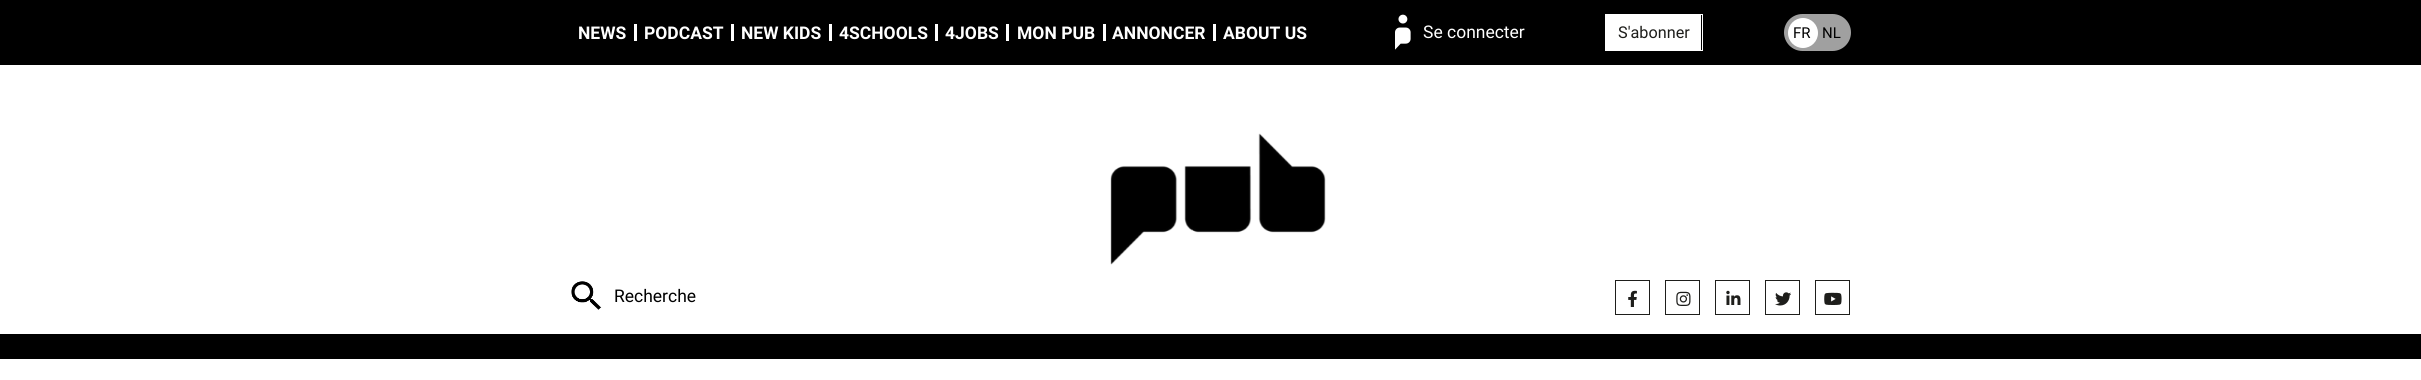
import math
import cairocffi as cairo

surface = cairo.ImageSurface(cairo.FORMAT_RGB24, 2421, 380)
ctx = cairo.Context(surface)
options = cairo.FontOptions()
options.set_hint_metrics(cairo.HINT_METRICS_OFF)
options.set_hint_style(cairo.HINT_STYLE_NONE)
ctx.set_font_options(options)
ctx.set_miter_limit(4)


def rgb(r, g, b):
    ctx.set_source_rgb(r / 255, g / 255, b / 255)


def face(family, size, italic, bold):
    ctx.select_font_face(family, cairo.FONT_SLANT_ITALIC if italic else cairo.FONT_SLANT_NORMAL, cairo.FONT_WEIGHT_BOLD if bold else cairo.FONT_WEIGHT_NORMAL)
    ctx.set_font_size(size)


def label(x, y, s):
    ctx.move_to(x, y)
    ctx.show_text(s)


def rect(x, y, w, h):
    ctx.rectangle(x, y, w, h)
    ctx.fill()


def rrect(x, y, w, h, r):
    ctx.new_sub_path()
    for i, (u, v) in enumerate([(x + w - r, y + h - r), (x + r, y + h - r), (x + r, y + r), (x + w - r, y + r)]):
        ctx.arc(u, v, r, i * math.pi / 2, (i + 1) * math.pi / 2)
    ctx.close_path()


def image(path, x, y, w, h):
    ctx.save()
    ctx.set_source_surface(cairo.ImageSurface.create_from_png(path), x, y)
    ctx.rectangle(x, y, w, h)
    ctx.fill()
    ctx.restore()


rgb(255, 255, 255)
ctx.paint()
rgb(0, 0, 0)
rect(0, 0, 2421, 65)
face('Roboto', 17.5, 0, 1)
rgb(255, 255, 255)
label(578, 39, 'NEWS')
rect(634, 24, 3, 17)
label(644, 39, 'PODCAST')
rect(731, 24, 3, 17)
label(741, 39, 'NEW KIDS')
rect(829, 24, 3, 17)
label(839, 39, '4SCHOOLS')
rect(935, 24, 3, 17)
label(945, 39, '4JOBS')
rect(1006, 24, 3, 17)
label(1017, 39, 'MON PUB')
rect(1103, 24, 3, 17)
label(1112, 39, 'ANNONCER')
rect(1213, 24, 3, 17)
label(1223, 39, 'ABOUT US')
image('image0.png', 1395, 14, 16, 36)
face('Roboto', 17.5, 0, 0)
label(1423, 38, 'Se connecter')
ctx.rectangle(1605.5, 14.5, 97, 36)
ctx.set_line_width(1)
ctx.stroke()
rect(1606, 15, 95, 35)
face('Roboto', 16.25, 0, 0)
rgb(30, 30, 27)
label(1618, 38, 'S\'abonner')
rgb(160, 160, 160)
rrect(1786, 16, 63, 33, 16.5)
ctx.fill_preserve()
ctx.set_line_width(4)
ctx.stroke()
rgb(255, 255, 255)
ctx.arc(1803, 33, 15, 0, 2 * math.pi)
ctx.fill()
face('Roboto', 15, 0, 0)
rgb(0, 0, 0)
label(1793, 38, 'FR')
label(1822, 38, 'NL')
rect(0, 334, 2421, 25)
image('image1.png', 1110, 133, 216, 132)
image('image2.png', 571, 281, 31, 29)
face('Roboto', 17.5, 0, 0)
label(614, 302, 'Recherche')
ctx.rectangle(1615.5, 280.5, 34, 34)
rgb(30, 30, 27)
ctx.set_line_width(1)
ctx.stroke()
image('image3.png', 1628, 290, 9, 17)
ctx.rectangle(1665.5, 280.5, 34, 34)
ctx.stroke()
image('image4.png', 1676, 291, 15, 15)
ctx.rectangle(1715.5, 280.5, 34, 34)
ctx.stroke()
image('image5.png', 1726, 290, 15, 15)
ctx.rectangle(1765.5, 280.5, 34, 34)
ctx.stroke()
image('image6.png', 1775, 292, 16, 14)
ctx.rectangle(1815.5, 280.5, 34, 34)
ctx.stroke()
image('image7.png', 1824, 292, 18, 13)
surface.write_to_png('render.png')
